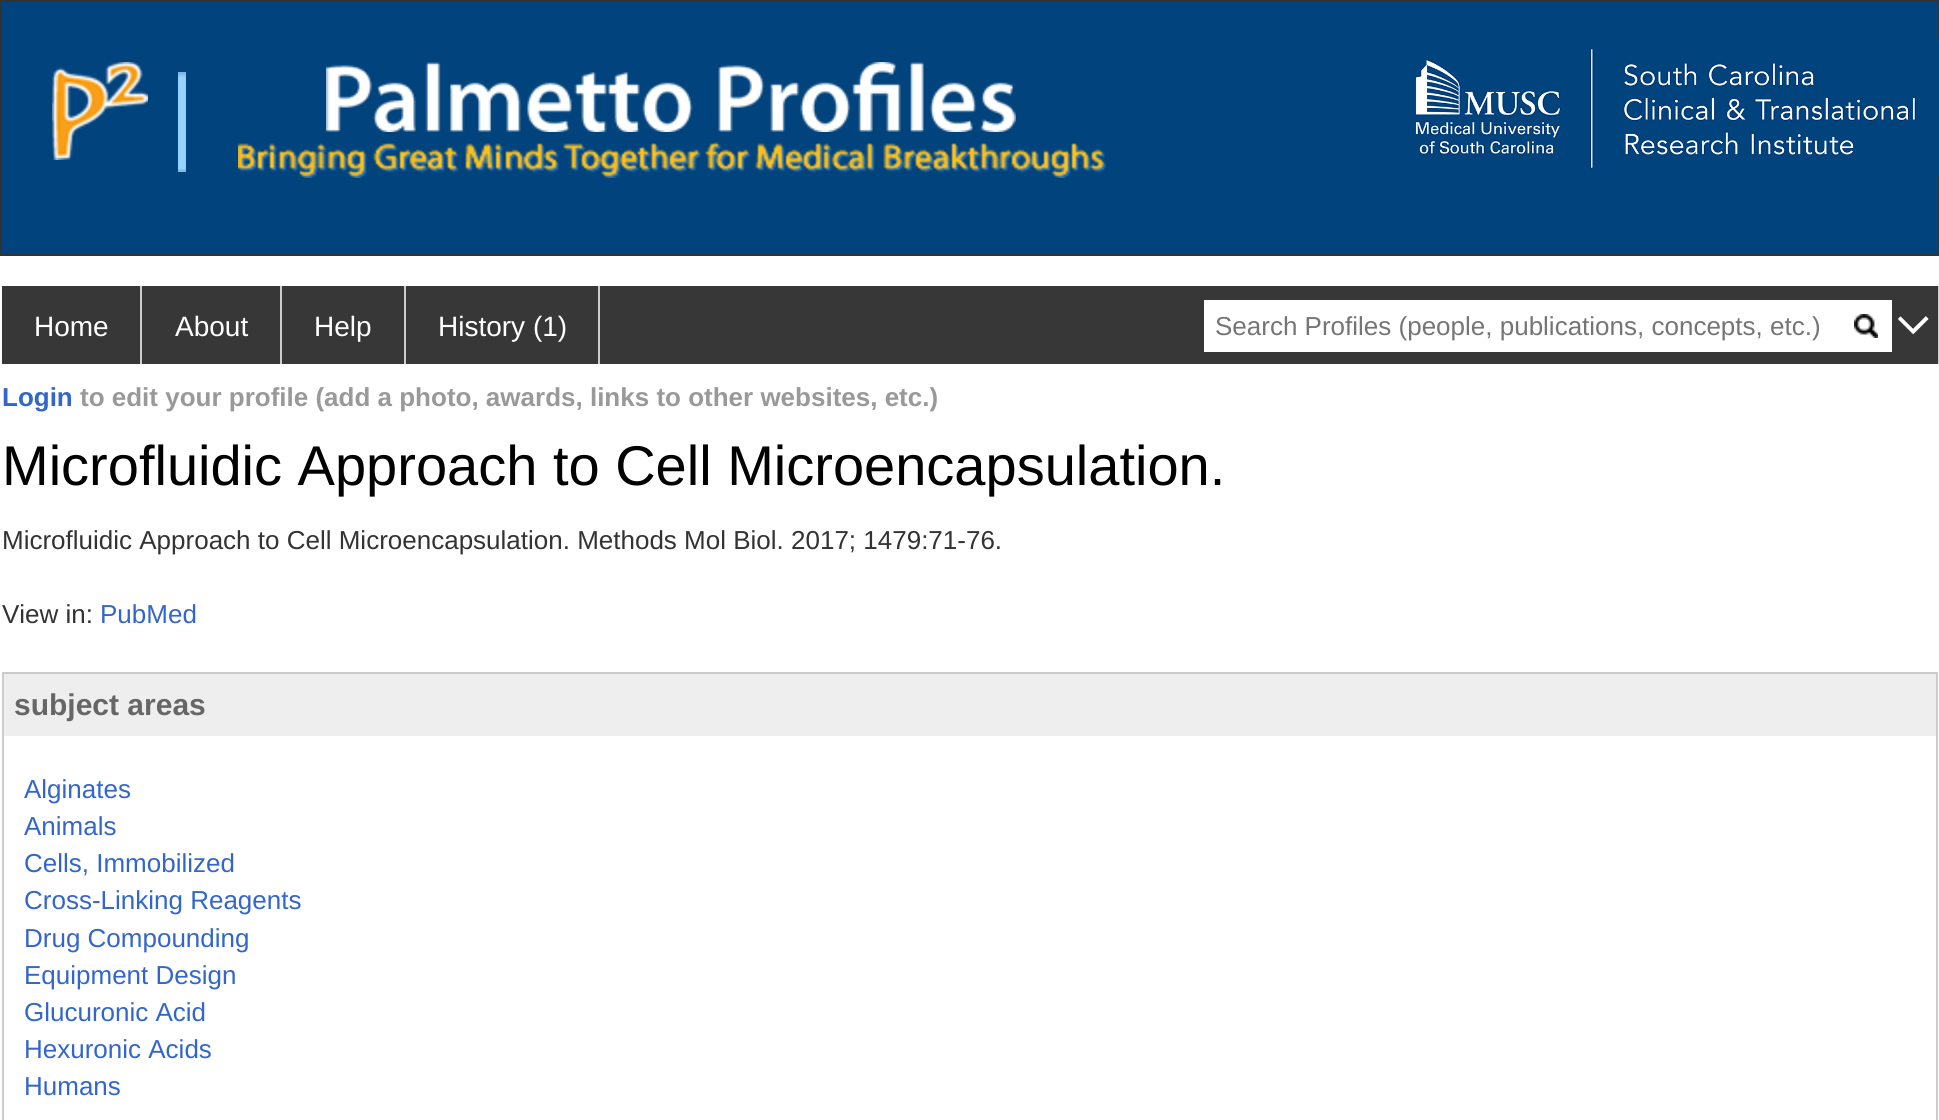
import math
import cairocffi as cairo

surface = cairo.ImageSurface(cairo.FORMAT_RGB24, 1939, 1120)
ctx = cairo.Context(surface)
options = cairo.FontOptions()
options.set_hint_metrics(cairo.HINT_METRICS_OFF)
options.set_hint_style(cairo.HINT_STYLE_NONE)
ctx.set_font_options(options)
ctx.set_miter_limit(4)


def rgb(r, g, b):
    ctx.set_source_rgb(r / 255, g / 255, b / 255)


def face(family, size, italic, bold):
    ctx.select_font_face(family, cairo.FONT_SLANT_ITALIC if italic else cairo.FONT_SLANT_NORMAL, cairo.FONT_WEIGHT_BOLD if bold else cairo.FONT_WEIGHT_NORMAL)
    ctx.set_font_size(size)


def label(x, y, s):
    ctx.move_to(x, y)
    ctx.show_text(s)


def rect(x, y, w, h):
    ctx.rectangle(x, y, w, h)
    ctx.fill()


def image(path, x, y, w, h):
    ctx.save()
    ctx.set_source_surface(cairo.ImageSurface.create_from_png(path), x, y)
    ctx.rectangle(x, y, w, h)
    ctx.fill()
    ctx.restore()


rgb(255, 255, 255)
ctx.paint()
rgb(1, 67, 125)
ctx.rectangle(1, 1, 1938, 254)
ctx.fill_preserve()
rgb(51, 51, 51)
ctx.stroke()
image('image0.png', 52, 62, 96, 98)
image('image1.png', 178, 72, 8, 100)
image('image2.png', 326, 62, 690, 70)
image('image3.png', 238, 142, 868, 36)
image('image4.png', 1415, 40, 524, 136)
rgb(56, 55, 55)
rect(2, 286, 1936, 78)
rgb(204, 204, 204)
rect(140, 286, 2, 78)
face('Liberation Sans', 28, 0, 0)
rgb(255, 255, 255)
label(34, 336, 'Home')
rgb(204, 204, 204)
rect(280, 286, 2, 78)
rgb(255, 255, 255)
label(175, 336, 'About')
rgb(204, 204, 204)
rect(404, 286, 2, 78)
rgb(255, 255, 255)
label(314, 336, 'Help')
rgb(204, 204, 204)
rect(598, 286, 2, 78)
rgb(255, 255, 255)
label(438, 336, 'History (1)')
rect(1204, 300, 688, 52)
face('Liberation Sans', 26, 0, 0)
rgb(117, 117, 117)
label(1215, 335, 'Search Profiles (people, publications, concepts, etc.)')
image('image5.png', 1854, 314, 24, 24)
rgb(204, 204, 204)
rect(1938, 286, 1, 78)
image('image6.png', 1897, 316, 32, 19)
face('Liberation Sans', 26, 0, 1)
rgb(51, 102, 204)
label(2, 406, 'Login')
rgb(153, 153, 153)
label(80, 406, 'to edit your profile (add a photo, awards, links to other websites, etc.)')
face('Liberation Sans', 56, 0, 0)
rgb(0, 0, 0)
label(2, 485, 'Microfluidic Approach to Cell Microencapsulation.')
face('Liberation Sans', 26, 0, 0)
rgb(51, 51, 51)
label(2, 549, 'Microfluidic Approach to Cell Microencapsulation. Methods Mol Biol. 2017; 1479:71-76.')
label(2, 623, 'View in:')
rgb(51, 102, 204)
label(100, 623, 'PubMed')
ctx.rectangle(3, 673, 1934, 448)
rgb(204, 204, 204)
ctx.stroke()
rgb(238, 238, 238)
rect(4, 674, 1932, 62)
face('Liberation Sans', 30, 0, 1)
rgb(102, 102, 102)
label(14, 715, 'subject areas')
face('Liberation Sans', 26, 0, 0)
rgb(51, 102, 204)
label(24, 798, 'Alginates')
label(24, 835, 'Animals')
label(24, 872, 'Cells, Immobilized')
label(24, 909, 'Cross-Linking Reagents')
label(24, 947, 'Drug Compounding')
label(24, 984, 'Equipment Design')
label(24, 1021, 'Glucuronic Acid')
label(24, 1058, 'Hexuronic Acids')
label(24, 1095, 'Humans')
surface.write_to_png('render.png')
